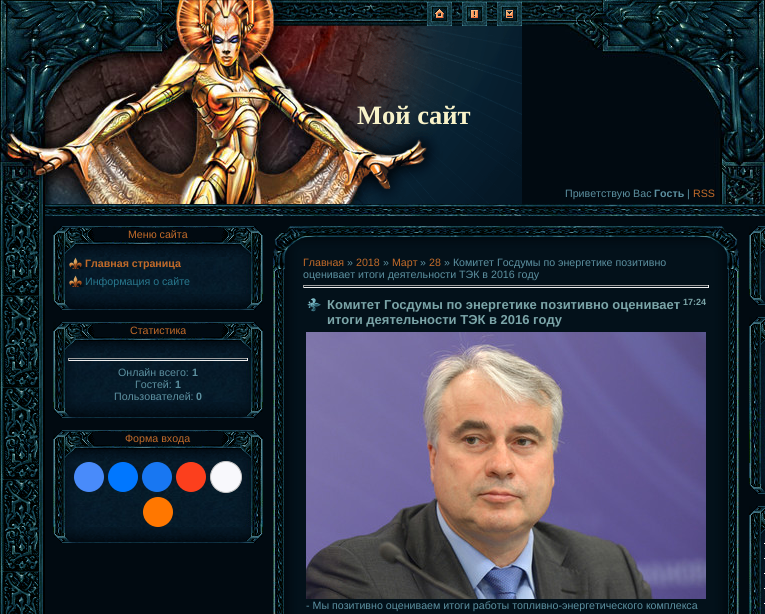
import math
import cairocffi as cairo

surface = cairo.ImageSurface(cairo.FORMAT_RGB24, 765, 614)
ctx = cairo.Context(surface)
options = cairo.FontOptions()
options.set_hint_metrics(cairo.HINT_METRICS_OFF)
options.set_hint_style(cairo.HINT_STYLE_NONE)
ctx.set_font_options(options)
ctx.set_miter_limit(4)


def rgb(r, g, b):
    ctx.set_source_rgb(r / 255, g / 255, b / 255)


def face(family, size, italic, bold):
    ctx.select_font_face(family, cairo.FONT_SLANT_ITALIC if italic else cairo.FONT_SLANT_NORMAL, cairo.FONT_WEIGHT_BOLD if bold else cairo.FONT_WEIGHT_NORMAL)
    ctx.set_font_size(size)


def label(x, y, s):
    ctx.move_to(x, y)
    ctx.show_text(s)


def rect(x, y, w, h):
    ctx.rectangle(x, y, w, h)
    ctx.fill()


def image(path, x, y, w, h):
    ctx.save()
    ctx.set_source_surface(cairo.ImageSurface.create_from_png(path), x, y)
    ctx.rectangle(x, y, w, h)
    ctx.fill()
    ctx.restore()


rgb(1, 10, 17)
ctx.paint()
image('image0.png', 0, 0, 357, 26)
image('image1.png', 357, 0, 165, 26)
image('image2.png', 427, 2, 25, 24)
image('image3.png', 462, 2, 25, 24)
image('image4.png', 497, 2, 25, 24)
image('image5.png', 522, 0, 243, 26)
image('image6.png', 0, 26, 357, 178)
image('image7.png', 357, 26, 165, 178)
face('Liberation Serif', 26.5, 0, 1)
rgb(248, 243, 201)
label(357, 124, 'Мой сайт')
image('image8.png', 565, 26, 200, 178)
face('Liberation Sans', 10.65, 0, 0)
rgb(92, 144, 160)
label(565, 197, 'Приветствую Вас')
face('Liberation Sans', 10.65, 0, 1)
label(654, 197, 'Гость')
face('Liberation Sans', 10.65, 0, 0)
label(687, 197, '|')
rgb(193, 106, 41)
label(693, 197, 'RSS')
image('image9.png', 0, 204, 45, 410)
image('image10.png', 45, 204, 720, 12)
image('image11.png', 53, 226, 210, 31)
label(128, 238, 'Меню сайта')
image('image12.png', 53, 257, 210, 37)
image('image13.png', 68, 257, 16, 12)
face('Liberation Sans', 10.65, 0, 1)
label(85, 267, 'Главная страница')
image('image13.png', 68, 275, 16, 12)
face('Liberation Sans', 10.65, 0, 0)
rgb(39, 119, 141)
label(85, 285, 'Информация о сайте')
image('image14.png', 53, 294, 210, 16)
image('image11.png', 53, 322, 210, 31)
rgb(193, 106, 41)
label(130, 334, 'Статистика')
image('image15.png', 53, 353, 210, 49)
rgb(159, 159, 159)
rect(68, 358, 180, 1)
rgb(238, 238, 238)
rect(247, 358, 1, 3)
rect(68, 360, 180, 1)
rgb(159, 159, 159)
rect(68, 358, 1, 3)
rgb(92, 144, 160)
label(118, 376, 'Онлайн всего:')
face('Liberation Sans', 10.65, 0, 1)
label(192, 376, '1')
face('Liberation Sans', 10.65, 0, 0)
label(135, 388, 'Гостей:')
face('Liberation Sans', 10.65, 0, 1)
label(175, 388, '1')
face('Liberation Sans', 10.65, 0, 0)
label(114, 400, 'Пользователей:')
face('Liberation Sans', 10.65, 0, 1)
label(196, 400, '0')
image('image14.png', 53, 402, 210, 16)
image('image11.png', 53, 430, 210, 31)
face('Liberation Sans', 10.65, 0, 0)
rgb(193, 106, 41)
label(125, 442, 'Форма входа')
image('image16.png', 53, 461, 210, 66)
rgb(73, 139, 250)
ctx.arc(89, 477, 15, 0, 2 * math.pi)
ctx.fill()
rgb(0, 119, 255)
ctx.arc(123, 477, 15, 0, 2 * math.pi)
ctx.fill()
rgb(24, 119, 242)
ctx.arc(157, 477, 15, 0, 2 * math.pi)
ctx.fill()
rgb(252, 63, 29)
ctx.arc(191, 477, 15, 0, 2 * math.pi)
ctx.fill()
rgb(248, 248, 252)
ctx.arc(226, 477, 15.5, 0, 2 * math.pi)
ctx.fill_preserve()
rgb(196, 196, 196)
ctx.set_line_width(1)
ctx.stroke()
rgb(255, 119, 0)
ctx.arc(158, 512, 15, 0, 2 * math.pi)
ctx.fill()
image('image14.png', 53, 527, 210, 16)
image('image17.png', 273, 226, 30, 30)
image('image18.png', 303, 226, 392, 30)
image('image19.png', 303, 226, 14, 12)
image('image20.png', 695, 226, 14, 30)
image('image21.png', 709, 226, 30, 30)
image('image22.png', 273, 256, 30, 358)
image('image23.png', 273, 256, 12, 22)
rgb(3, 17, 26)
rect(303, 256, 406, 358)
rgb(193, 106, 41)
label(303, 266, 'Главная')
rgb(92, 144, 160)
label(347, 266, '»')
rgb(193, 106, 41)
label(356, 266, '2018')
rgb(92, 144, 160)
label(383, 266, '»')
rgb(193, 106, 41)
label(392, 266, 'Март')
rgb(92, 144, 160)
label(420, 266, '»')
rgb(193, 106, 41)
label(429, 266, '28')
rgb(92, 144, 160)
label(444, 266, '» Комитет Госдумы по энергетике позитивно')
label(303, 278, 'оценивает итоги деятельности ТЭК в 2016 году')
rgb(159, 159, 159)
rect(303, 285, 406, 1)
rgb(238, 238, 238)
rect(708, 285, 1, 3)
rect(303, 287, 406, 1)
rgb(159, 159, 159)
rect(303, 285, 1, 3)
image('image24.png', 307, 298, 14, 14)
face('Liberation Sans', 13, 0, 1)
rgb(123, 165, 168)
label(327, 309, 'Комитет Госдумы по энергетике позитивно оценивает')
face('Liberation Sans', 9, 0, 1)
label(683, 305, '17:24')
face('Liberation Sans', 13, 0, 1)
label(327, 324, 'итоги деятельности ТЭК в 2016 году')
image('image25.png', 306, 332, 400, 267)
face('Liberation Sans', 10.65, 0, 0)
rgb(92, 144, 160)
label(306, 609, '- Мы позитивно оцениваем итоги работы топливно-энергетического комплекса')
image('image26.png', 709, 256, 30, 358)
image('image27.png', 727, 256, 12, 22)
image('image28.png', 749, 226, 16, 31)
image('image29.png', 749, 257, 16, 32)
image('image30.png', 749, 289, 16, 16)
image('image28.png', 749, 317, 16, 31)
image('image31.png', 749, 348, 16, 130)
image('image30.png', 749, 478, 16, 16)
image('image28.png', 749, 506, 16, 31)
image('image32.png', 749, 537, 16, 77)
rgb(255, 255, 255)
rect(764, 543, 1, 1)
rect(764, 558, 1, 1)
rect(764, 573, 1, 1)
rect(764, 588, 1, 1)
rect(764, 603, 1, 1)
surface.write_to_png('render.png')
